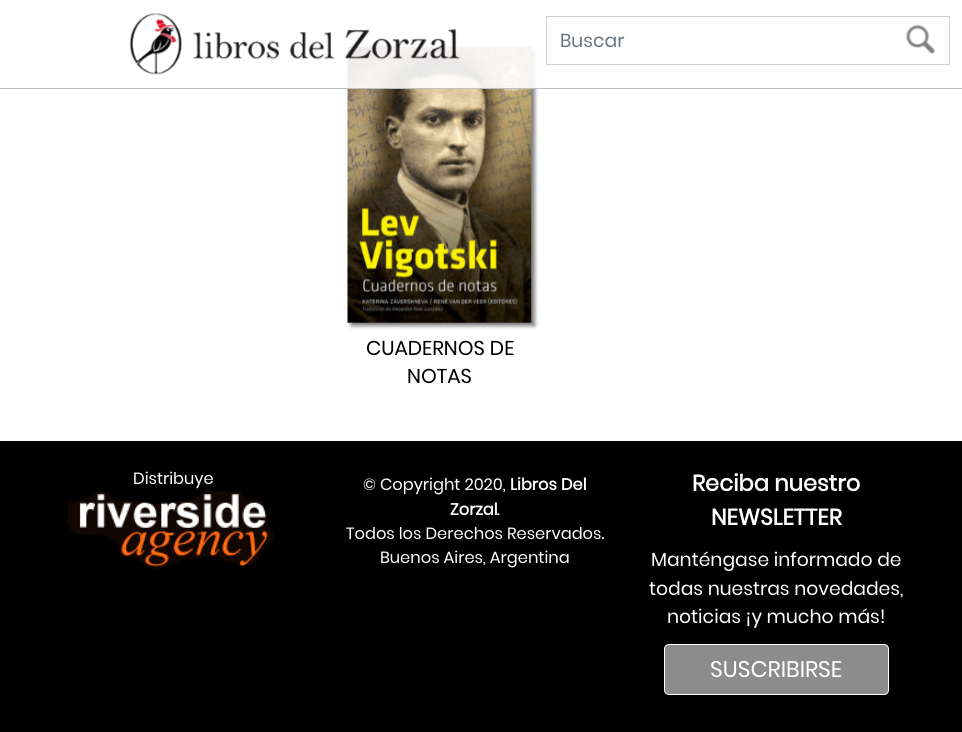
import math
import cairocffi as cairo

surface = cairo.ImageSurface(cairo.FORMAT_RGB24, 962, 732)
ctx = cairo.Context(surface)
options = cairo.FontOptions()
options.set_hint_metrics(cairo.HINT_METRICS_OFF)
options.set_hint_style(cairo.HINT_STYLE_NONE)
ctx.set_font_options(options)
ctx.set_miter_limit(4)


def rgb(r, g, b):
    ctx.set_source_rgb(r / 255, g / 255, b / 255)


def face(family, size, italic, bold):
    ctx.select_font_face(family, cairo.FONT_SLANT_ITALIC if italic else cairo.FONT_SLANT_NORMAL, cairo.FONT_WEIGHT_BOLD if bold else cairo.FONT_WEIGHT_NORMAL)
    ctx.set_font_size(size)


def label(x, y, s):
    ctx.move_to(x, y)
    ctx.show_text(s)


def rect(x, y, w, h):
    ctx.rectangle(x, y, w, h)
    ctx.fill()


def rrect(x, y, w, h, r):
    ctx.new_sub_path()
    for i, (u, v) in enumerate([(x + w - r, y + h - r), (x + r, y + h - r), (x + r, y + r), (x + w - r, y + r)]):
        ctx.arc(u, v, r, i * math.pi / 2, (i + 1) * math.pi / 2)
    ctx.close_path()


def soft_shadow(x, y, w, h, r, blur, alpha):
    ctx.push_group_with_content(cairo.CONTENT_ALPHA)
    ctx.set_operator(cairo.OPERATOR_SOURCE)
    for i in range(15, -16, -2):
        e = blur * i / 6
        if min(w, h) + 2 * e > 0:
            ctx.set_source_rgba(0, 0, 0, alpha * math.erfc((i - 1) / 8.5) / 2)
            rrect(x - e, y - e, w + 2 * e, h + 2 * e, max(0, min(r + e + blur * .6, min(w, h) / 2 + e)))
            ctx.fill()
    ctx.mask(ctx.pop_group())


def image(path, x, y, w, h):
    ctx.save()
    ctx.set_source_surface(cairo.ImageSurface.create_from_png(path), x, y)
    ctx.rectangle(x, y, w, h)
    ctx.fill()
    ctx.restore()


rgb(255, 255, 255)
ctx.paint()
rgb(0, 0, 0)
soft_shadow(351, 50, 184, 276, 0, 2, 0.5)
image('image2.png', 347, 46, 185, 278)
ctx.set_source_rgba(1, 1, 1, 0.9)
rect(347, 46, 192, 42)
rgb(193, 193, 193)
rect(0, 88, 962, 1)
image('image0.png', 129, 13, 331, 62)
ctx.rectangle(546.5, 16.5, 403, 48)
rgb(206, 206, 206)
ctx.set_line_width(1)
ctx.stroke()
face('Poppins', 18.75, 0, 0)
rgb(108, 117, 125)
label(560, 47, 'Buscar')
image('image1.png', 905, 24, 31, 30)
face('Poppins', 20, 0, 0)
rgb(0, 0, 0)
label(366, 355, 'CUADERNOS DE')
label(407, 383, 'NOTAS')
rect(0, 441, 962, 291)
face('Poppins', 16.25, 0, 0)
rgb(255, 255, 255)
label(133, 484, 'Distribuye')
image('image3.png', 66, 491, 209, 78)
label(363, 490, '© Copyright 2020,')
face('Poppins', 16.25, 0, 1)
label(510, 490, 'Libros Del')
label(450, 515, 'Zorzal')
face('Poppins', 16.25, 0, 0)
label(497, 515, '.')
label(346, 539, 'Todos los Derechos Reservados.')
label(380, 563, 'Buenos Aires, Argentina')
face('Poppins', 22.5, 0, 1)
label(692, 491, 'Reciba nuestro')
label(711, 525, 'NEWSLETTER')
face('Poppins', 18.75, 0, 0)
label(651, 566, 'Manténgase informado de')
label(649, 595, 'todas nuestras novedades,')
label(667, 623, 'noticias ¡y mucho más!')
rgb(140, 140, 140)
rrect(664.5, 644.5, 224, 50, 4.5)
ctx.fill_preserve()
rgb(255, 255, 255)
ctx.stroke()
face('Poppins', 22.5, 0, 0)
label(710, 677, 'SUSCRIBIRSE')
surface.write_to_png('render.png')
